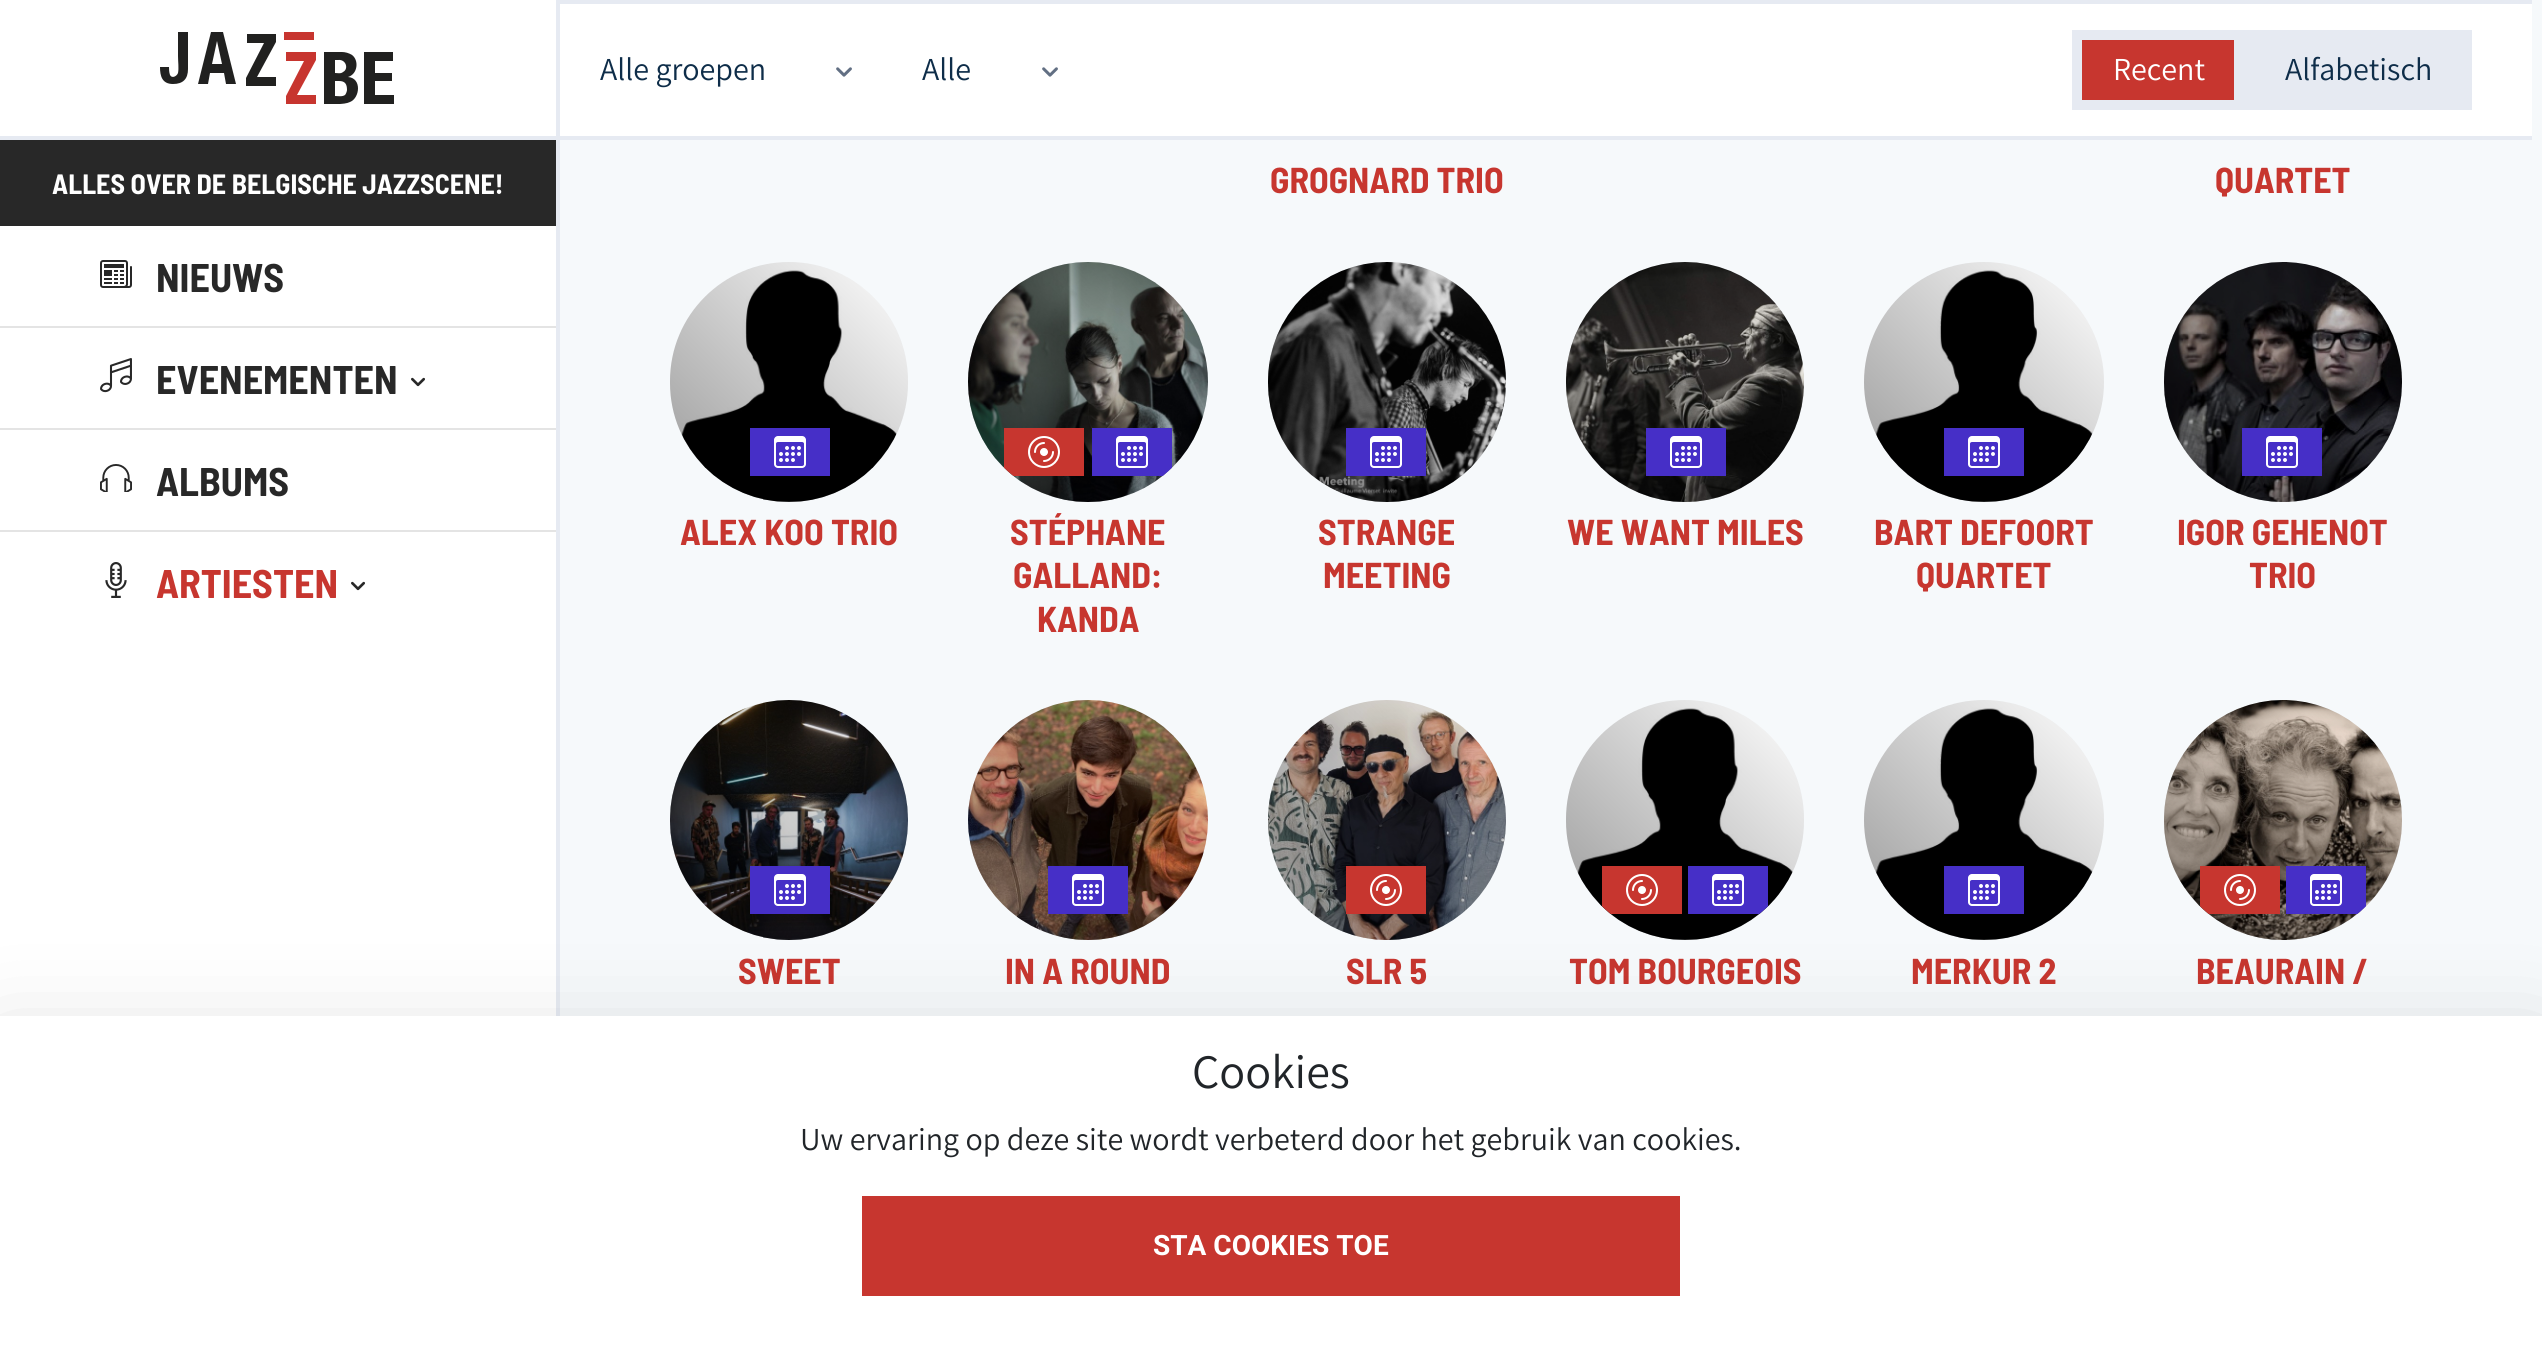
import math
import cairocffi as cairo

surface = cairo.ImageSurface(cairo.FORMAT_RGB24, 2542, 1354)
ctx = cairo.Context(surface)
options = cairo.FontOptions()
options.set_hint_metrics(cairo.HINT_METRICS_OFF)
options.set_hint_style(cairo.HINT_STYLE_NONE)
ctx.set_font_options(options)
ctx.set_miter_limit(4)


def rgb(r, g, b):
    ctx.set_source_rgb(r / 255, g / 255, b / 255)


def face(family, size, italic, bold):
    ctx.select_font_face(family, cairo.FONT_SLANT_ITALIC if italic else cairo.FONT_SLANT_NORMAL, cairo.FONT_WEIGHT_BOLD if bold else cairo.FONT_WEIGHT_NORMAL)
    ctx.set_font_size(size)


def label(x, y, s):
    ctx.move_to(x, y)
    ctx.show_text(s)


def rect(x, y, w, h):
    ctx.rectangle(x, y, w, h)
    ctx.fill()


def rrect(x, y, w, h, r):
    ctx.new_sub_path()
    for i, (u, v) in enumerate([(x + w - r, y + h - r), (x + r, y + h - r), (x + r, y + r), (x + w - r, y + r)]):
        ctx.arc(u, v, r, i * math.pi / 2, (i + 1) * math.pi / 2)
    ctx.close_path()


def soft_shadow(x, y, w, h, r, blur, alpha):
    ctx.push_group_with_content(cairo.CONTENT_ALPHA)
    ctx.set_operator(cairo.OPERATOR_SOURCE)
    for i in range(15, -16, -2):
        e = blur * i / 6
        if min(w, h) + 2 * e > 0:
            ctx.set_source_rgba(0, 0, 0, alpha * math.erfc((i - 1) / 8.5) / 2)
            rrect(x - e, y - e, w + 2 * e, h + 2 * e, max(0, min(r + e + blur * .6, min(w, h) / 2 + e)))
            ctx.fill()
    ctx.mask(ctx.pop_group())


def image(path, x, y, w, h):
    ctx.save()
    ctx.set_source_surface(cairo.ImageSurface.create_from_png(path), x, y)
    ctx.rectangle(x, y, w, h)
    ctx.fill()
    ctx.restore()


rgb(246, 249, 251)
ctx.paint()
rgb(255, 255, 255)
rect(0, 0, 556, 1016)
rgb(230, 234, 242)
rect(556, 0, 4, 1016)
rect(0, 136, 556, 4)
rgb(33, 33, 32)
ctx.new_path()
ctx.move_to(188, 32)
ctx.line_to(178, 32)
ctx.line_to(178, 56)
ctx.curve_to(178, 62, 179, 68, 178, 73)
ctx.curve_to(177, 76, 172, 79, 170, 75)
ctx.curve_to(169, 72, 169, 69, 169, 67)
ctx.line_to(160, 67)
ctx.curve_to(160, 76, 162, 84, 173, 84)
ctx.curve_to(183, 84, 188, 79, 188, 69)
ctx.close_path()
ctx.fill()
ctx.set_fill_rule(cairo.FILL_RULE_EVEN_ODD)
ctx.new_path()
ctx.move_to(223, 32)
ctx.line_to(211, 32)
ctx.line_to(198, 84)
ctx.line_to(208, 84)
ctx.line_to(210, 73)
ctx.line_to(224, 73)
ctx.line_to(226, 84)
ctx.line_to(236, 84)
ctx.close_path()
ctx.move_to(217, 41)
ctx.line_to(222, 64)
ctx.line_to(212, 64)
ctx.close_path()
ctx.fill()
ctx.set_fill_rule(cairo.FILL_RULE_WINDING)
ctx.new_path()
ctx.move_to(276, 34)
ctx.line_to(247, 34)
ctx.line_to(247, 43)
ctx.line_to(264, 43)
ctx.line_to(246, 78)
ctx.line_to(246, 86)
ctx.line_to(276, 86)
ctx.line_to(276, 77)
ctx.line_to(257, 77)
ctx.line_to(276, 42)
ctx.close_path()
ctx.fill()
rgb(199, 53, 47)
ctx.new_path()
ctx.move_to(286, 52)
ctx.line_to(286, 61)
ctx.line_to(304, 61)
ctx.line_to(286, 96)
ctx.line_to(286, 104)
ctx.line_to(316, 104)
ctx.line_to(316, 95)
ctx.line_to(297, 95)
ctx.line_to(316, 60)
ctx.line_to(316, 52)
ctx.close_path()
ctx.fill()
ctx.save()
ctx.rectangle(160, 32, 234, 72)
ctx.clip()
rgb(33, 33, 32)
ctx.set_fill_rule(cairo.FILL_RULE_EVEN_ODD)
ctx.new_path()
ctx.move_to(324, 52)
ctx.line_to(324, 104)
ctx.curve_to(330, 104, 344, 105, 350, 102)
ctx.curve_to(360, 98, 362, 78, 348, 77)
ctx.curve_to(358, 74, 359, 60, 352, 55)
ctx.curve_to(349, 53, 345, 52, 342, 52)
ctx.close_path()
ctx.move_to(338, 60)
ctx.curve_to(346, 59, 349, 69, 343, 72)
ctx.curve_to(341, 74, 337, 73, 335, 73)
ctx.line_to(335, 60)
ctx.close_path()
ctx.move_to(339, 81)
ctx.curve_to(345, 81, 347, 84, 347, 90)
ctx.curve_to(347, 91, 346, 94, 345, 95)
ctx.curve_to(342, 97, 338, 96, 335, 96)
ctx.line_to(335, 81)
ctx.close_path()
ctx.fill()
ctx.restore()
rgb(33, 33, 32)
ctx.new_path()
ctx.move_to(364, 52)
ctx.line_to(364, 104)
ctx.line_to(394, 104)
ctx.line_to(394, 95)
ctx.line_to(375, 95)
ctx.line_to(375, 81)
ctx.line_to(392, 81)
ctx.line_to(392, 73)
ctx.line_to(375, 73)
ctx.line_to(375, 61)
ctx.line_to(393, 61)
ctx.line_to(393, 52)
ctx.close_path()
ctx.fill()
rgb(199, 53, 47)
rect(284, 32, 30, 8)
rgb(40, 40, 40)
rect(0, 140, 556, 86)
face('Barlow Semi Condensed', 28, 0, 1)
rgb(255, 255, 255)
label(52, 194, 'ALLES OVER DE BELGISCHE JAZZSCENE!')
rgb(228, 228, 228)
rect(0, 326, 556, 2)
image('image0.png', 100, 260, 32, 28)
face('Barlow Semi Condensed', 40, 0, 1)
rgb(40, 40, 40)
label(156, 292, 'NIEUWS')
rgb(228, 228, 228)
rect(0, 428, 556, 2)
image('image1.png', 100, 358, 32, 35)
rgb(40, 40, 40)
label(156, 394, 'EVENEMENTEN')
image('image2.png', 411, 377, 14, 10)
rgb(228, 228, 228)
rect(0, 530, 556, 2)
image('image3.png', 100, 464, 32, 28)
rgb(40, 40, 40)
label(156, 496, 'ALBUMS')
image('image4.png', 105, 562, 22, 36)
rgb(199, 54, 47)
label(156, 598, 'ARTIESTEN')
image('image2.png', 351, 581, 14, 10)
rgb(255, 255, 255)
rect(560, 4, 1972, 132)
rgb(230, 234, 242)
rect(560, 0, 1972, 4)
rect(560, 136, 1972, 4)
face('Assistant', 32, 0, 0)
rgb(14, 45, 73)
label(600, 80, 'Alle groepen')
image('image5.png', 836, 67, 16, 10)
label(922, 80, 'Alle')
image('image5.png', 1042, 67, 16, 10)
rgb(230, 234, 242)
rect(2072, 30, 400, 80)
rgb(199, 54, 47)
rect(2082, 40, 152, 60)
rgb(255, 255, 255)
label(2113, 80, 'Recent')
rgb(14, 45, 73)
label(2285, 80, 'Alfabetisch')
face('Barlow Semi Condensed', 36, 0, 1)
rgb(199, 54, 47)
label(1270, 193, 'GROGNARD TRIO')
label(2215, 193, 'QUARTET')
image('image6.png', 670, 262, 238, 240)
gradient = cairo.LinearGradient(670, 502, 909, 263)
gradient.add_color_stop_rgba(0, 0, 0, 0, 0.4)
gradient.add_color_stop_rgba(1, 0, 0, 0, 0)
ctx.set_source(gradient)
rrect(670, 262, 238, 240, 119)
ctx.fill()
rgb(70, 47, 199)
rect(750, 428, 80, 48)
image('image7.png', 774, 436, 32, 32)
rgb(199, 54, 47)
label(680, 545, 'ALEX KOO TRIO')
image('image8.png', 968, 262, 240, 240)
gradient = cairo.LinearGradient(968, 502, 1208, 262)
gradient.add_color_stop_rgba(0, 0, 0, 0, 0.4)
gradient.add_color_stop_rgba(1, 0, 0, 0, 0)
ctx.set_source(gradient)
ctx.arc(1088, 382, 120, 0, 2 * math.pi)
ctx.fill()
ctx.save()
rrect(968, 262, 240, 240, 120)
ctx.clip()
rgb(199, 54, 47)
rect(1004, 428, 80, 48)
ctx.restore()
image('image9.png', 1028, 436, 32, 32)
ctx.save()
rrect(968, 262, 240, 240, 120)
ctx.clip()
rgb(70, 47, 199)
rect(1092, 428, 80, 48)
ctx.restore()
image('image7.png', 1116, 436, 32, 32)
rgb(199, 54, 47)
label(1010, 545, 'STÉPHANE')
label(1013, 588, 'GALLAND:')
label(1037, 632, 'KANDA')
image('image10.png', 1268, 262, 238, 240)
gradient = cairo.LinearGradient(1268, 502, 1507, 263)
gradient.add_color_stop_rgba(0, 0, 0, 0, 0.4)
gradient.add_color_stop_rgba(1, 0, 0, 0, 0)
ctx.set_source(gradient)
rrect(1268, 262, 238, 240, 119)
ctx.fill()
rgb(70, 47, 199)
rect(1346, 428, 80, 48)
image('image7.png', 1370, 436, 32, 32)
rgb(199, 54, 47)
label(1318, 545, 'STRANGE')
label(1323, 588, 'MEETING')
image('image11.png', 1566, 262, 238, 240)
gradient = cairo.LinearGradient(1566, 502, 1805, 263)
gradient.add_color_stop_rgba(0, 0, 0, 0, 0.4)
gradient.add_color_stop_rgba(1, 0, 0, 0, 0)
ctx.set_source(gradient)
rrect(1566, 262, 238, 240, 119)
ctx.fill()
rgb(70, 47, 199)
rect(1646, 428, 80, 48)
image('image7.png', 1670, 436, 32, 32)
rgb(199, 54, 47)
label(1567, 545, 'WE WANT MILES')
image('image12.png', 1864, 262, 240, 240)
gradient = cairo.LinearGradient(1864, 502, 2104, 262)
gradient.add_color_stop_rgba(0, 0, 0, 0, 0.4)
gradient.add_color_stop_rgba(1, 0, 0, 0, 0)
ctx.set_source(gradient)
ctx.arc(1984, 382, 120, 0, 2 * math.pi)
ctx.fill()
rgb(70, 47, 199)
rect(1944, 428, 80, 48)
image('image7.png', 1968, 436, 32, 32)
rgb(199, 54, 47)
label(1874, 545, 'BART DEFOORT')
label(1916, 588, 'QUARTET')
image('image13.png', 2164, 262, 238, 240)
gradient = cairo.LinearGradient(2164, 502, 2403, 263)
gradient.add_color_stop_rgba(0, 0, 0, 0, 0.4)
gradient.add_color_stop_rgba(1, 0, 0, 0, 0)
ctx.set_source(gradient)
rrect(2164, 262, 238, 240, 119)
ctx.fill()
rgb(70, 47, 199)
rect(2242, 428, 80, 48)
image('image7.png', 2266, 436, 32, 32)
rgb(199, 54, 47)
label(2177, 545, 'IGOR GEHENOT')
label(2249, 588, 'TRIO')
image('image14.png', 670, 700, 238, 240)
gradient = cairo.LinearGradient(670, 940, 909, 701)
gradient.add_color_stop_rgba(0, 0, 0, 0, 0.4)
gradient.add_color_stop_rgba(1, 0, 0, 0, 0)
ctx.set_source(gradient)
rrect(670, 700, 238, 240, 119)
ctx.fill()
rgb(70, 47, 199)
rect(750, 866, 80, 48)
image('image7.png', 774, 874, 32, 32)
rgb(199, 54, 47)
label(738, 984, 'SWEET')
image('image15.png', 968, 700, 240, 240)
gradient = cairo.LinearGradient(968, 940, 1208, 700)
gradient.add_color_stop_rgba(0, 0, 0, 0, 0.4)
gradient.add_color_stop_rgba(1, 0, 0, 0, 0)
ctx.set_source(gradient)
ctx.arc(1088, 820, 120, 0, 2 * math.pi)
ctx.fill()
rgb(70, 47, 199)
rect(1048, 866, 80, 48)
image('image7.png', 1072, 874, 32, 32)
rgb(199, 54, 47)
label(1005, 984, 'IN A ROUND')
image('image16.png', 1268, 700, 238, 240)
gradient = cairo.LinearGradient(1268, 940, 1507, 701)
gradient.add_color_stop_rgba(0, 0, 0, 0, 0.4)
gradient.add_color_stop_rgba(1, 0, 0, 0, 0)
ctx.set_source(gradient)
rrect(1268, 700, 238, 240, 119)
ctx.fill()
rgb(199, 54, 47)
rect(1346, 866, 80, 48)
image('image9.png', 1370, 874, 32, 32)
label(1346, 984, 'SLR 5')
image('image17.png', 1566, 700, 238, 240)
gradient = cairo.LinearGradient(1566, 940, 1805, 701)
gradient.add_color_stop_rgba(0, 0, 0, 0, 0.4)
gradient.add_color_stop_rgba(1, 0, 0, 0, 0)
ctx.set_source(gradient)
rrect(1566, 700, 238, 240, 119)
ctx.fill()
ctx.save()
rrect(1566, 700, 238, 240, 119)
ctx.clip()
rgb(199, 54, 47)
rect(1602, 866, 80, 48)
ctx.restore()
image('image9.png', 1626, 874, 32, 32)
ctx.save()
rrect(1566, 700, 238, 240, 119)
ctx.clip()
rgb(70, 47, 199)
rect(1688, 866, 80, 48)
ctx.restore()
image('image7.png', 1712, 874, 32, 32)
rgb(199, 54, 47)
label(1569, 984, 'TOM BOURGEOIS')
image('image18.png', 1864, 700, 240, 240)
gradient = cairo.LinearGradient(1864, 940, 2104, 700)
gradient.add_color_stop_rgba(0, 0, 0, 0, 0.4)
gradient.add_color_stop_rgba(1, 0, 0, 0, 0)
ctx.set_source(gradient)
ctx.arc(1984, 820, 120, 0, 2 * math.pi)
ctx.fill()
rgb(70, 47, 199)
rect(1944, 866, 80, 48)
image('image7.png', 1968, 874, 32, 32)
rgb(199, 54, 47)
label(1911, 984, 'MERKUR 2')
image('image19.png', 2164, 700, 238, 240)
gradient = cairo.LinearGradient(2164, 940, 2403, 701)
gradient.add_color_stop_rgba(0, 0, 0, 0, 0.4)
gradient.add_color_stop_rgba(1, 0, 0, 0, 0)
ctx.set_source(gradient)
rrect(2164, 700, 238, 240, 119)
ctx.fill()
ctx.save()
rrect(2164, 700, 238, 240, 119)
ctx.clip()
rgb(199, 54, 47)
rect(2200, 866, 80, 48)
ctx.restore()
image('image9.png', 2224, 874, 32, 32)
ctx.save()
rrect(2164, 700, 238, 240, 119)
ctx.clip()
rgb(70, 47, 199)
rect(2286, 866, 80, 48)
ctx.restore()
image('image7.png', 2310, 874, 32, 32)
rgb(199, 54, 47)
label(2196, 984, 'BEAURAIN /')
rgb(0, 0, 0)
soft_shadow(0, 1048, 2542, 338, 0, 48, 0.18)
rgb(255, 255, 255)
rect(0, 1016, 2542, 338)
face('Assistant', 48, 0, 0)
rgb(33, 37, 41)
label(1192, 1088, 'Cookies')
face('Assistant', 32, 0, 0)
label(800, 1150, 'Uw ervaring op deze site wordt verbeterd door het gebruik van cookies.')
rgb(199, 54, 47)
rect(862, 1196, 818, 100)
face('Roboto', 28, 0, 1)
rgb(255, 255, 255)
label(1153, 1255, 'STA COOKIES TOE')
surface.write_to_png('render.png')
